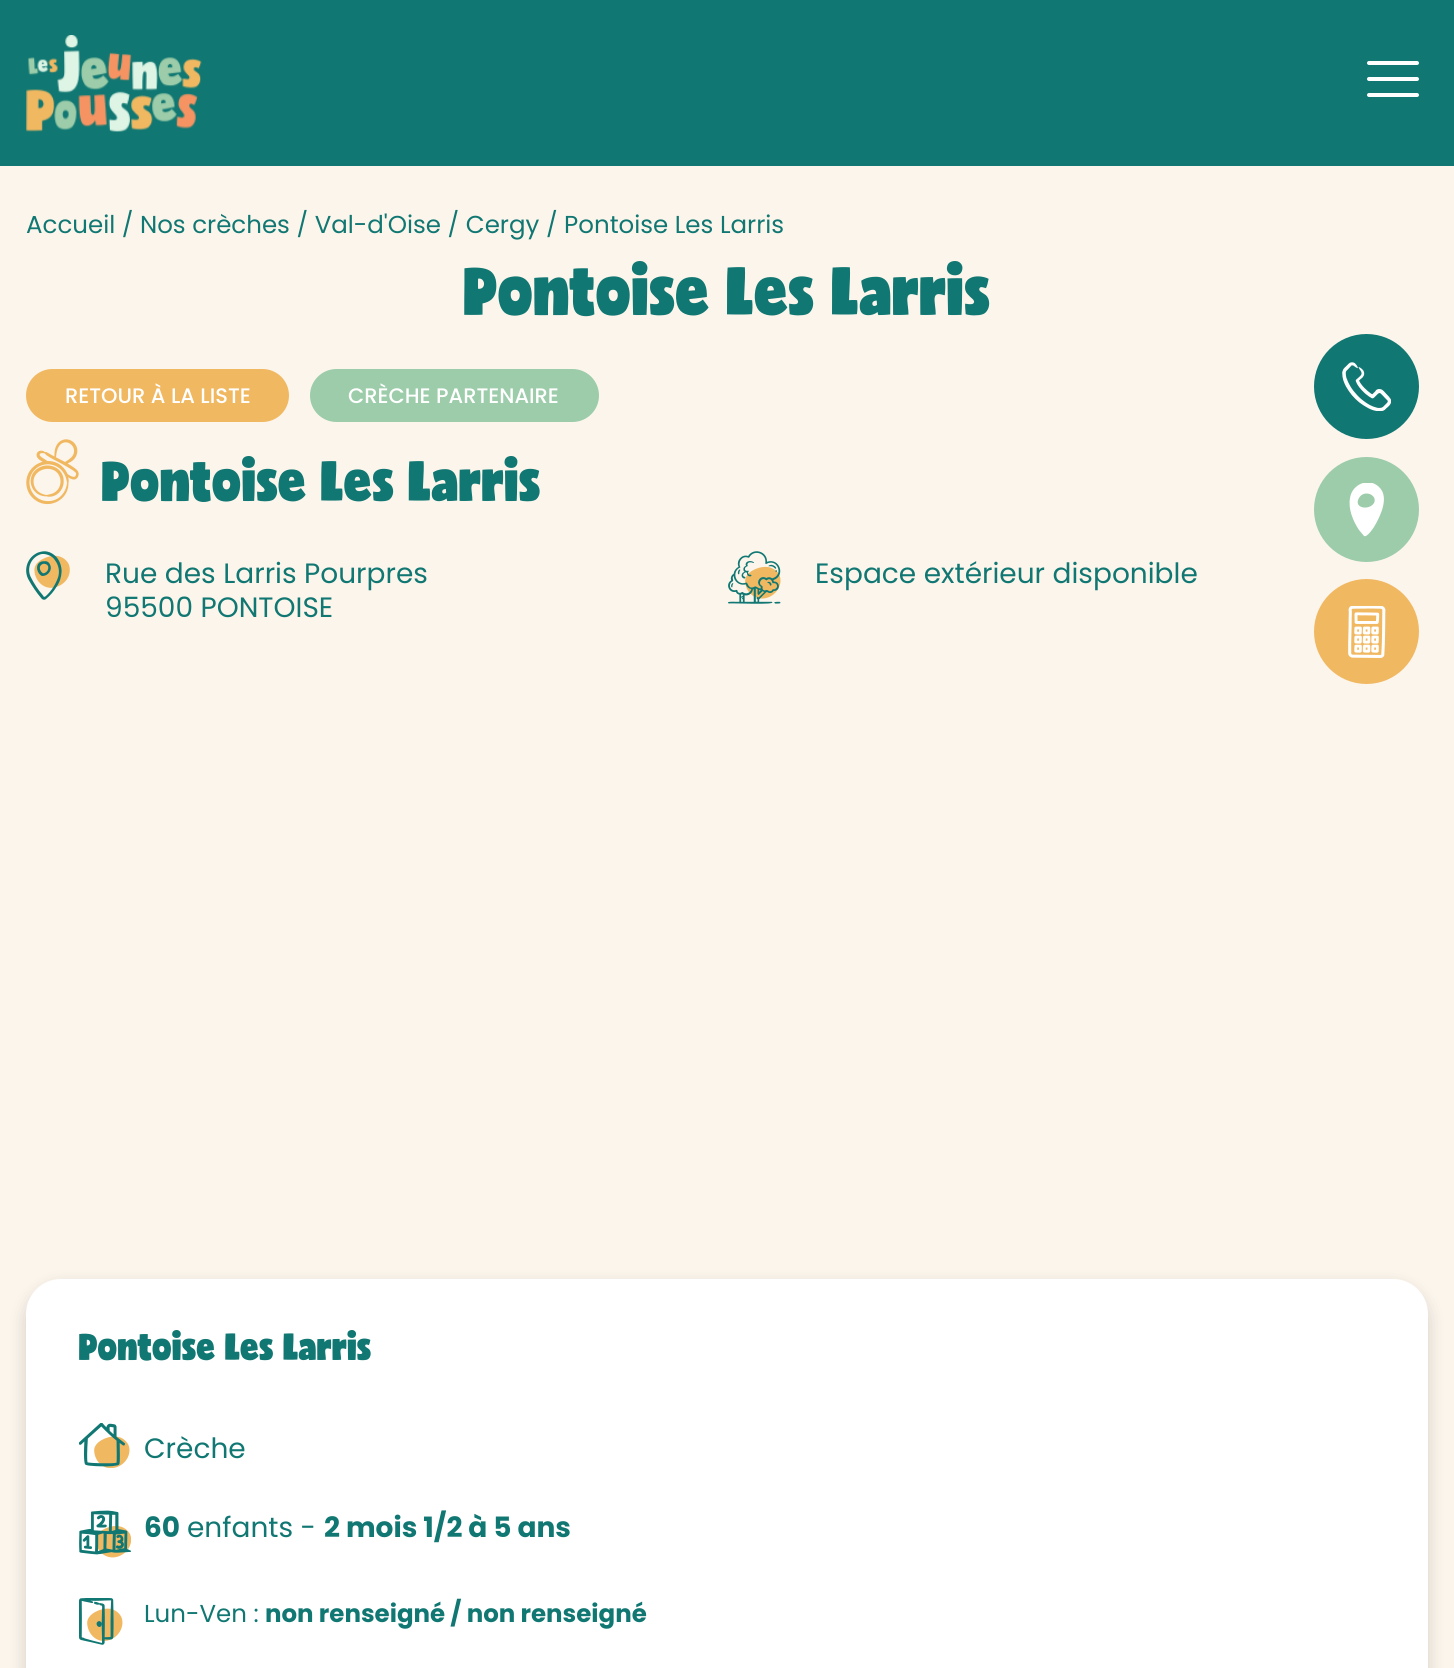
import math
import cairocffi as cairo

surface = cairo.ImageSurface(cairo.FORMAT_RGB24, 1454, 1668)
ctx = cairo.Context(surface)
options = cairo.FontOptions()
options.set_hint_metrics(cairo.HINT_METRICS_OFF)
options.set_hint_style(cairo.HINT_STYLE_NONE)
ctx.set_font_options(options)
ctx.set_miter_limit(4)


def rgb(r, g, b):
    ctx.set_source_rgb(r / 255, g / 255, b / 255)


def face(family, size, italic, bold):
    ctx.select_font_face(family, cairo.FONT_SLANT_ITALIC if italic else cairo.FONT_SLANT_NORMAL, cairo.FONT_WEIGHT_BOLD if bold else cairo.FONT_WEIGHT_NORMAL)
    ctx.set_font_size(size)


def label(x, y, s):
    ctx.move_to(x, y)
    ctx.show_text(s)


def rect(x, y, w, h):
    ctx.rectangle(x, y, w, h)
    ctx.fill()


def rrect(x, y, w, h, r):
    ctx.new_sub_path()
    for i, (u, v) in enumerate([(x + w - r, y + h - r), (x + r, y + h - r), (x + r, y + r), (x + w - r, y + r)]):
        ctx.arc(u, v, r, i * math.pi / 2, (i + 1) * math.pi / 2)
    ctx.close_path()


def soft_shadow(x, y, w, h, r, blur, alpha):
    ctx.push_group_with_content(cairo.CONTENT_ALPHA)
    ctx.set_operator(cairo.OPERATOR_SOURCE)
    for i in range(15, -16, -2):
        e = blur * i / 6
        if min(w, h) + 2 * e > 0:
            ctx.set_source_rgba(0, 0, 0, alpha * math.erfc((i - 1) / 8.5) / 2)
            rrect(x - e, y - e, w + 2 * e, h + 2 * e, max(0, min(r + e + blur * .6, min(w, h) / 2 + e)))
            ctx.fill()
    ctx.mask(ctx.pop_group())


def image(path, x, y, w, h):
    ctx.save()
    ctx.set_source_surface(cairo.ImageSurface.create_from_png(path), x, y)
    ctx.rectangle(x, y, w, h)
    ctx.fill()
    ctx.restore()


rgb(252, 245, 236)
ctx.paint()
rgb(16, 119, 114)
rect(0, 0, 1454, 166)
image('image0.png', 26, 35, 176, 97)
rgb(255, 255, 255)
rrect(1367, 61, 52, 4, 2)
ctx.fill()
rrect(1367, 77, 52, 4, 2)
ctx.fill()
rrect(1367, 93, 52, 4, 2)
ctx.fill()
face('Poppins', 24.5, 0, 0)
rgb(16, 119, 114)
label(26, 233, 'Accueil / Nos crèches / Val-d\'Oise / Cergy / Pontoise Les Larris')
face('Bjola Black', 63, 0, 0)
label(464, 315, 'Pontoise Les Larris')
rgb(241, 184, 98)
rrect(26, 369, 263, 53, 26.5)
ctx.fill()
face('Poppins Medium', 21, 0, 0)
rgb(255, 255, 255)
label(65, 403, 'RETOUR À LA LISTE')
rgb(156, 204, 169)
rrect(310, 369, 289, 53, 26.5)
ctx.fill()
rgb(255, 255, 255)
label(348, 403, 'CRÈCHE PARTENAIRE')
image('image1.png', 26, 439, 53, 66)
face('Bjola Black', 52.5, 0, 0)
rgb(16, 119, 114)
label(102, 501, 'Pontoise Les Larris')
image('image2.png', 26, 551, 44, 49)
face('Poppins', 28, 0, 0)
label(105, 583, 'Rue des Larris Pourpres')
label(105, 617, '95500 PONTOISE')
image('image3.png', 728, 551, 53, 53)
label(815, 583, 'Espace extérieur disponible')
rgb(0, 0, 0)
soft_shadow(26, 1286, 1402, 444, 35, 9, 0.16)
rgb(255, 255, 255)
rrect(26, 1279, 1402, 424, 35)
ctx.fill()
face('Bjola Black', 35, 0, 0)
rgb(16, 119, 114)
label(79, 1360, 'Pontoise Les Larris')
image('image4.png', 79, 1423, 51, 45)
face('Poppins', 28, 0, 0)
label(144, 1458, 'Crèche')
image('image5.png', 79, 1510, 52, 48)
face('Poppins', 28, 0, 1)
label(144, 1537, '60')
face('Poppins', 28, 0, 0)
label(187, 1537, 'enfants -')
face('Poppins', 28, 0, 1)
label(324, 1537, '2 mois 1/2 à 5 ans')
image('image6.png', 79, 1598, 44, 47)
face('Poppins', 24.5, 0, 0)
label(144, 1622, 'Lun-Ven :')
face('Poppins', 24.5, 0, 1)
label(265, 1622, 'non renseigné / non renseigné')
ctx.new_path()
ctx.arc(1366.5, 386.5, 52.5, 0, 2 * math.pi)
ctx.fill()
image('image7.png', 1342, 362, 49, 49)
rgb(156, 204, 169)
ctx.arc(1366.5, 509.5, 52.5, 0, 2 * math.pi)
ctx.fill()
ctx.save()
ctx.rectangle(1349, 483, 35, 54)
ctx.clip()
rgb(255, 255, 255)
ctx.new_path()
ctx.move_to(1379, 487)
ctx.curve_to(1369, 477, 1352, 484, 1350, 498)
ctx.curve_to(1348, 509, 1353, 521, 1359, 530)
ctx.line_to(1364, 536)
ctx.curve_to(1367, 538, 1374, 527, 1374, 527)
ctx.curve_to(1380, 517, 1390, 497, 1379, 487)
ctx.close_path()
ctx.move_to(1359, 498)
ctx.curve_to(1364, 489, 1378, 495, 1374, 503)
ctx.curve_to(1369, 511, 1353, 508, 1359, 498)
ctx.close_path()
ctx.fill()
ctx.restore()
rgb(241, 184, 98)
ctx.arc(1366.5, 631.5, 52.5, 0, 2 * math.pi)
ctx.fill()
image('image8.png', 1348, 606, 38, 52)
surface.write_to_png('render.png')
